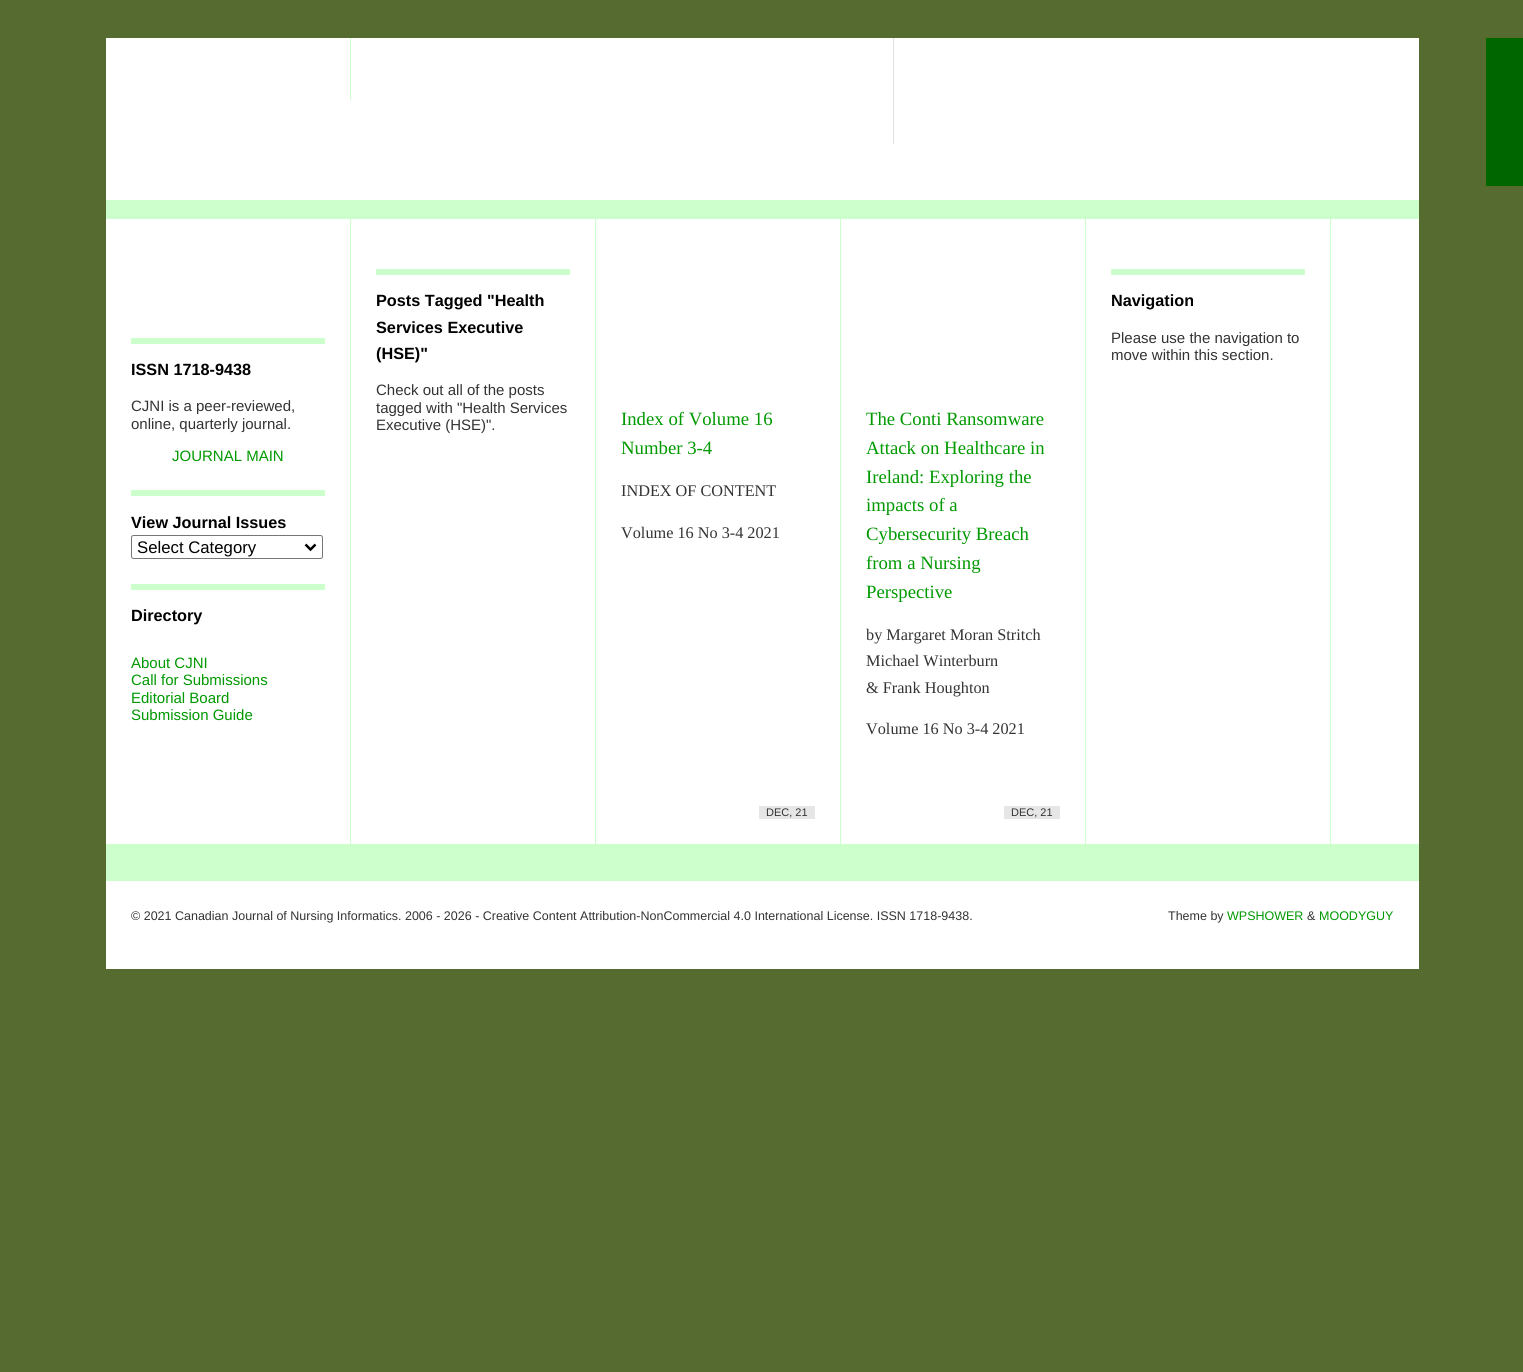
import math
import cairocffi as cairo

surface = cairo.ImageSurface(cairo.FORMAT_RGB24, 1523, 1372)
ctx = cairo.Context(surface)
options = cairo.FontOptions()
options.set_hint_metrics(cairo.HINT_METRICS_OFF)
options.set_hint_style(cairo.HINT_STYLE_NONE)
ctx.set_font_options(options)
ctx.set_miter_limit(4)


def rgb(r, g, b):
    ctx.set_source_rgb(r / 255, g / 255, b / 255)


def face(family, size, italic, bold):
    ctx.select_font_face(family, cairo.FONT_SLANT_ITALIC if italic else cairo.FONT_SLANT_NORMAL, cairo.FONT_WEIGHT_BOLD if bold else cairo.FONT_WEIGHT_NORMAL)
    ctx.set_font_size(size)


def label(x, y, s):
    ctx.move_to(x, y)
    ctx.show_text(s)


def rect(x, y, w, h):
    ctx.rectangle(x, y, w, h)
    ctx.fill()


def rrect(x, y, w, h, r):
    ctx.new_sub_path()
    for i, (u, v) in enumerate([(x + w - r, y + h - r), (x + r, y + h - r), (x + r, y + r), (x + w - r, y + r)]):
        ctx.arc(u, v, r, i * math.pi / 2, (i + 1) * math.pi / 2)
    ctx.close_path()


rgb(85, 107, 47)
ctx.paint()
rgb(0, 102, 0)
rect(1486, 38, 37, 148)
rgb(255, 255, 255)
rect(106, 38, 1313, 931)
rgb(204, 255, 204)
rect(106, 200, 1313, 19)
rect(350, 38, 1, 62)
rgb(224, 224, 224)
rect(893, 38, 1, 106)
rgb(204, 255, 204)
rect(595, 219, 1, 626)
rect(376, 269, 194, 6)
face('Liberation Sans', 16.25, 0, 1)
rgb(0, 0, 0)
label(376, 306, 'Posts Tagged "Health')
label(376, 333, 'Services Executive')
label(376, 359, '(HSE)"')
face('Liberation Sans', 15, 0, 0)
rgb(51, 51, 51)
label(376, 395, 'Check out all of the posts')
label(376, 413, 'tagged with "Health Services')
label(376, 430, 'Executive (HSE)".')
rgb(204, 255, 204)
rect(1330, 219, 1, 626)
rect(1111, 269, 194, 6)
face('Liberation Sans', 16.25, 0, 1)
rgb(0, 0, 0)
label(1111, 306, 'Navigation')
face('Liberation Sans', 15, 0, 0)
rgb(51, 51, 51)
label(1111, 343, 'Please use the navigation to')
label(1111, 360, 'move within this section.')
rgb(204, 255, 204)
rect(350, 219, 1, 626)
rect(131, 338, 194, 6)
face('Liberation Sans', 16.25, 0, 1)
rgb(0, 0, 0)
label(131, 375, 'ISSN 1718-9438')
face('Liberation Sans', 15, 0, 0)
rgb(51, 51, 51)
label(131, 411, 'CJNI is a peer-reviewed,')
label(131, 429, 'online, quarterly journal.')
rgb(0, 153, 0)
label(172, 461, 'JOURNAL MAIN')
rgb(204, 255, 204)
rect(131, 490, 194, 6)
face('Liberation Sans', 16.25, 0, 1)
rgb(0, 0, 0)
label(131, 528, 'View Journal Issues')
rrect(131.5, 535.5, 191, 23, 2)
rgb(118, 118, 118)
ctx.set_line_width(1)
ctx.stroke()
ctx.new_path()
ctx.move_to(305.5, 544.5)
ctx.line_to(310.5, 549.5)
ctx.line_to(315.5, 544.5)
rgb(0, 0, 0)
ctx.set_line_width(2.5)
ctx.stroke()
face('Liberation Sans', 16.75, 0, 0)
label(137, 553, 'Select Category')
rgb(204, 255, 204)
rect(131, 584, 194, 6)
face('Liberation Sans', 16.25, 0, 1)
rgb(0, 0, 0)
label(131, 621, 'Directory')
face('Liberation Sans', 15, 0, 0)
rgb(0, 153, 0)
label(131, 668, 'About CJNI')
label(131, 685, 'Call for Submissions')
label(131, 703, 'Editorial Board')
label(131, 720, 'Submission Guide')
rgb(204, 255, 204)
rect(840, 219, 1, 626)
face('Liberation Serif', 18.75, 0, 0)
rgb(0, 153, 0)
label(621, 425, 'Index of Volume 16')
label(621, 454, 'Number 3-4')
face('Liberation Serif', 16.25, 0, 0)
rgb(51, 51, 51)
label(621, 496, 'INDEX OF CONTENT')
label(621, 538, 'Volume 16 No 3-4 2021')
rgb(230, 230, 230)
rect(759, 806, 56, 13)
face('Liberation Sans', 11, 0, 0)
rgb(51, 51, 51)
label(766, 816, 'DEC, 21')
rgb(204, 255, 204)
rect(1085, 219, 1, 626)
face('Liberation Serif', 18.75, 0, 0)
rgb(0, 153, 0)
label(866, 425, 'The Conti Ransomware')
label(866, 454, 'Attack on Healthcare in')
label(866, 483, 'Ireland: Exploring the')
label(866, 511, 'impacts of a')
label(866, 540, 'Cybersecurity Breach')
label(866, 569, 'from a Nursing')
label(866, 598, 'Perspective')
face('Liberation Serif', 16.25, 0, 0)
rgb(51, 51, 51)
label(866, 640, 'by Margaret Moran Stritch')
label(866, 666, 'Michael Winterburn')
label(866, 693, '& Frank Houghton')
label(866, 734, 'Volume 16 No 3-4 2021')
rgb(230, 230, 230)
rect(1004, 806, 56, 13)
face('Liberation Sans', 11, 0, 0)
rgb(51, 51, 51)
label(1011, 816, 'DEC, 21')
rgb(204, 255, 204)
rect(106, 844, 1313, 37)
face('Liberation Sans', 12.5, 0, 0)
rgb(51, 51, 51)
label(131, 920, '© 2021 Canadian Journal of Nursing Informatics. 2006 - 2026 - Creative Content Attribution-NonCommercial 4.0 International License. ISSN 1718-9438.')
label(1168, 920, 'Theme by')
rgb(0, 153, 0)
label(1227, 920, 'WPSHOWER')
rgb(51, 51, 51)
label(1307, 920, '&')
rgb(0, 153, 0)
label(1319, 920, 'MOODYGUY')
surface.write_to_png('render.png')
